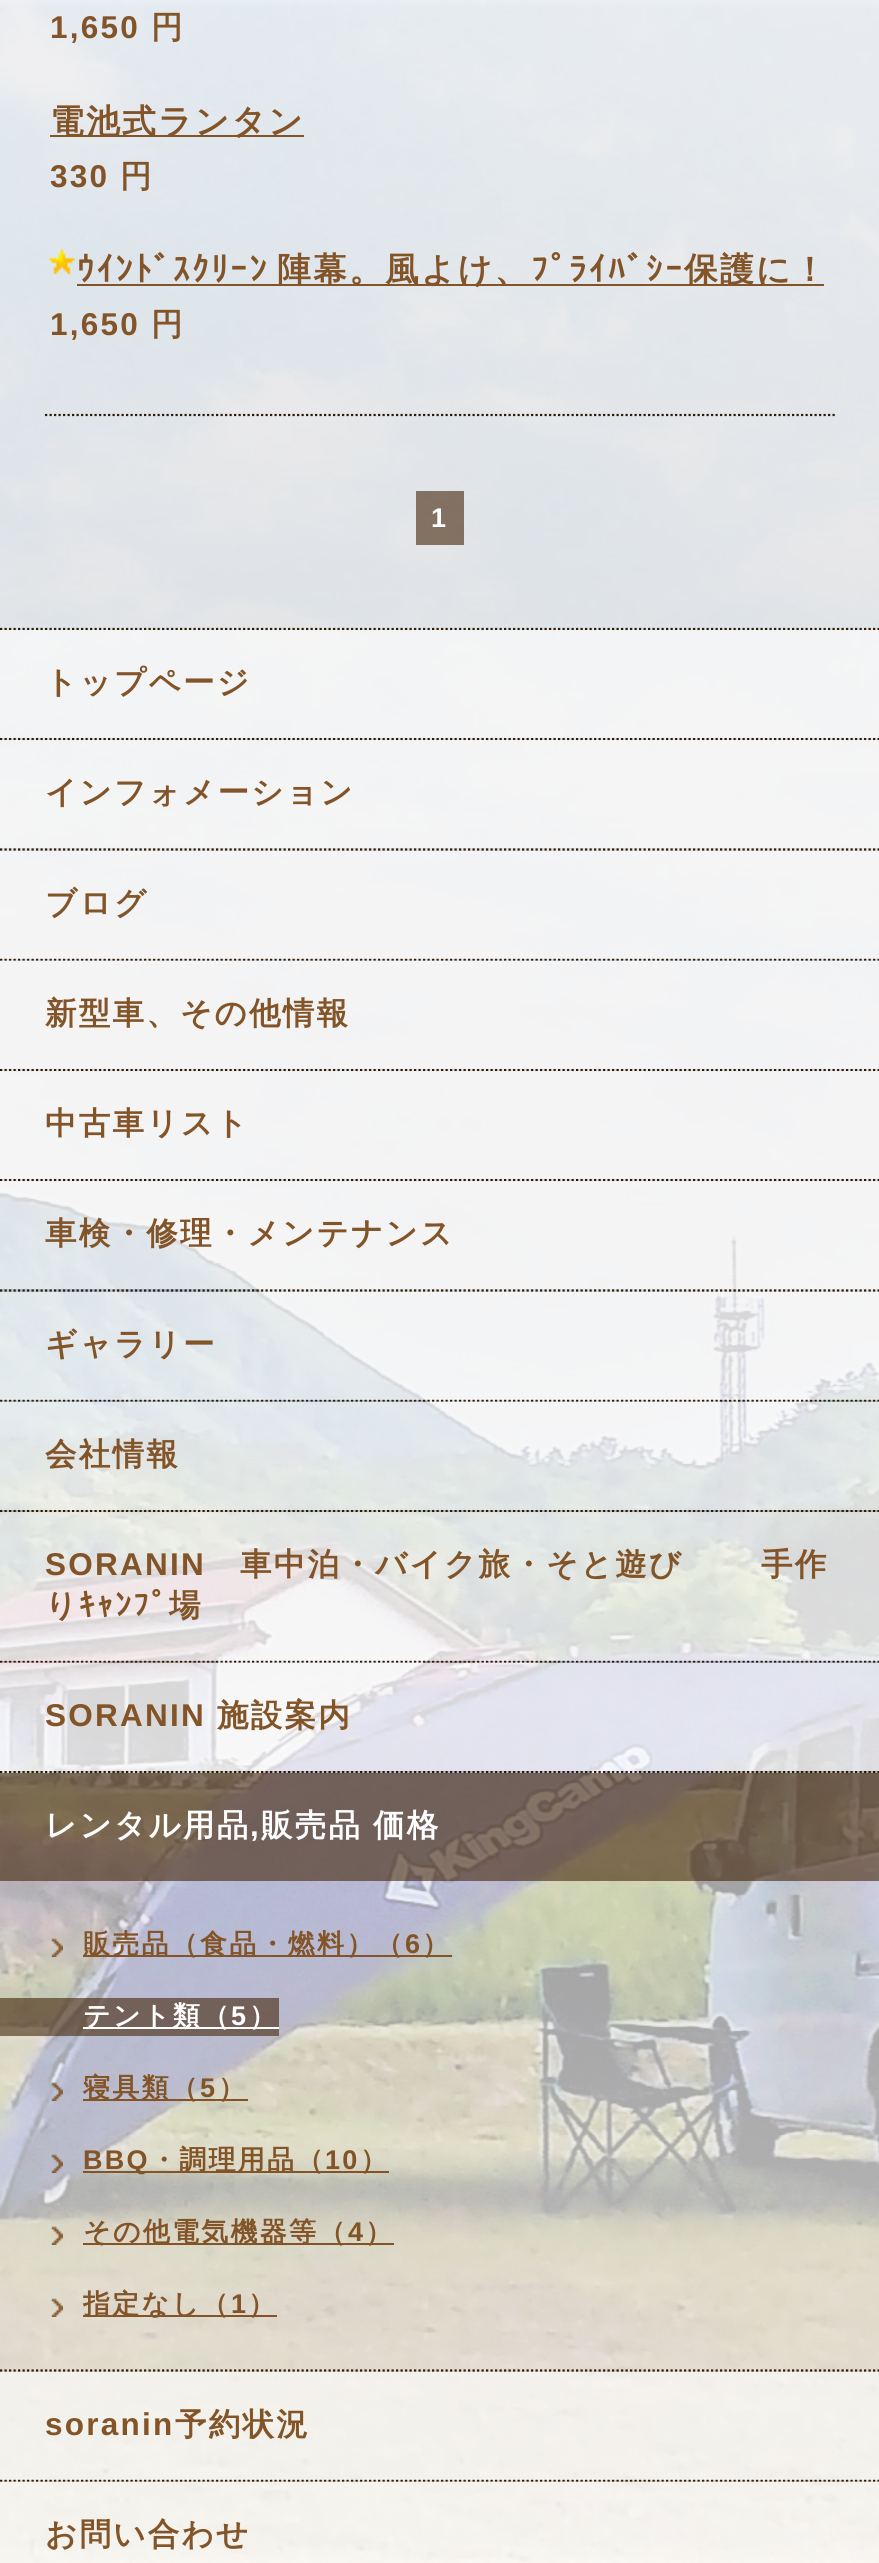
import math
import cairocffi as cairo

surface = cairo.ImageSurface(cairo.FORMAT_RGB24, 879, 2563)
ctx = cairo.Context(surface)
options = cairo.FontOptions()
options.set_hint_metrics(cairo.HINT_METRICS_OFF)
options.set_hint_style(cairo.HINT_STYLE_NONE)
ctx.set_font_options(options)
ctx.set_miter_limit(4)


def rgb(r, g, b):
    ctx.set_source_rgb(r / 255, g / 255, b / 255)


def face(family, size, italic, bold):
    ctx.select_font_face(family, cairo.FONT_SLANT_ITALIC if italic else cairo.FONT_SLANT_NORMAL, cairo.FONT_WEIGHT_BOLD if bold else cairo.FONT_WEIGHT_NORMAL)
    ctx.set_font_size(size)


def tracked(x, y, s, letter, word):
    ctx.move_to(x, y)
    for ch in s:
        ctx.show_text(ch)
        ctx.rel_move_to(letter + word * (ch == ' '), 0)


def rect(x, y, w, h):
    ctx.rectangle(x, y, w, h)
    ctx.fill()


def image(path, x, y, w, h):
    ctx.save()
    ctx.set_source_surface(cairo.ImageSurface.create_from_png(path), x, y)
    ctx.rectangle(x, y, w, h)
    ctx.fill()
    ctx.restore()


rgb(255, 255, 255)
ctx.paint()
image('image0.png', 0, 0, 879, 2563)
ctx.new_path()
ctx.move_to(45, 415)
ctx.line_to(835, 415)
rgb(45, 25, 5)
ctx.set_line_width(2.2)
ctx.set_dash([2.25, 2.25])
ctx.stroke()
face('Liberation Sans', 31.5, 0, 1)
rgb(130, 84, 40)
tracked(50, 38, '1,650', 2.25, 0)
face('WenQuanYi Zen Hei', 31.5, 0, 1)
tracked(151, 38, '円', 2.25, 0)
rect(50, 135, 254, 2)
face('WenQuanYi Zen Hei', 33.75, 0, 1)
tracked(50, 133, '電池式ランタン', 2.25, 0)
face('Liberation Sans', 31.5, 0, 1)
tracked(50, 187, '330', 2.25, 0)
face('WenQuanYi Zen Hei', 31.5, 0, 1)
tracked(120, 187, '円', 2.25, 0)
image('image1.png', 49, 248, 26, 26)
face('IPAPGothic', 33.75, 0, 1)
tracked(77, 281, 'ｳｲﾝﾄﾞｽｸﾘｰﾝ', 2.25, 0)
rect(77, 284, 747, 2)
face('WenQuanYi Zen Hei', 33.75, 0, 1)
tracked(277, 281, '陣幕。風よけ、', 2.25, 0)
face('IPAPGothic', 33.75, 0, 1)
tracked(531, 281, 'ﾌﾟﾗｲﾊﾞｼｰ', 2.25, 0)
face('WenQuanYi Zen Hei', 33.75, 0, 1)
tracked(684, 281, '保護に！', 2.25, 0)
face('Liberation Sans', 31.5, 0, 1)
tracked(50, 335, '1,650', 2.25, 0)
face('WenQuanYi Zen Hei', 31.5, 0, 1)
tracked(151, 335, '円', 2.25, 0)
ctx.set_source_rgba(0.263, 0.149, 0.039, 0.6)
rect(416, 491, 48, 54)
face('Liberation Sans', 27, 0, 1)
rgb(255, 255, 255)
tracked(431, 527, '1', 2.25, 0)
ctx.new_path()
ctx.move_to(0, 629)
ctx.line_to(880, 629)
rgb(45, 25, 5)
ctx.stroke()
ctx.new_path()
ctx.move_to(0, 739)
ctx.line_to(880, 739)
ctx.stroke()
ctx.set_source_rgba(1, 1, 1, 0.6)
rect(0, 630, 879, 108)
face('WenQuanYi Zen Hei', 31.5, 0, 1)
rgb(130, 84, 40)
tracked(45, 693, 'トップページ', 2.25, 0)
ctx.new_path()
ctx.move_to(0, 849.5)
ctx.line_to(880, 849.5)
rgb(45, 25, 5)
ctx.stroke()
ctx.set_source_rgba(1, 1, 1, 0.6)
rect(0, 740, 879, 108)
rgb(130, 84, 40)
tracked(45, 803, 'インフォメーション', 2.25, 0)
ctx.new_path()
ctx.move_to(0, 959.5)
ctx.line_to(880, 959.5)
rgb(45, 25, 5)
ctx.stroke()
ctx.set_source_rgba(1, 1, 1, 0.6)
rect(0, 851, 879, 108)
rgb(130, 84, 40)
tracked(45, 914, 'ブログ', 2.25, 0)
ctx.new_path()
ctx.move_to(0, 1070)
ctx.line_to(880, 1070)
rgb(45, 25, 5)
ctx.stroke()
ctx.set_source_rgba(1, 1, 1, 0.6)
rect(0, 961, 879, 108)
rgb(130, 84, 40)
tracked(45, 1024, '新型車、その他情報', 2.25, 0)
ctx.new_path()
ctx.move_to(0, 1180)
ctx.line_to(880, 1180)
rgb(45, 25, 5)
ctx.stroke()
ctx.set_source_rgba(1, 1, 1, 0.6)
rect(0, 1071, 879, 108)
rgb(130, 84, 40)
tracked(45, 1134, '中古車リスト', 2.25, 0)
ctx.new_path()
ctx.move_to(0, 1290.5)
ctx.line_to(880, 1290.5)
rgb(45, 25, 5)
ctx.stroke()
ctx.set_source_rgba(1, 1, 1, 0.6)
rect(0, 1181, 879, 108)
rgb(130, 84, 40)
tracked(45, 1244, '車検・修理・メンテナンス', 2.25, 0)
ctx.new_path()
ctx.move_to(0, 1400.5)
ctx.line_to(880, 1400.5)
rgb(45, 25, 5)
ctx.stroke()
ctx.set_source_rgba(1, 1, 1, 0.6)
rect(0, 1292, 879, 108)
rgb(130, 84, 40)
tracked(45, 1355, 'ギャラリー', 2.25, 0)
ctx.new_path()
ctx.move_to(0, 1511)
ctx.line_to(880, 1511)
rgb(45, 25, 5)
ctx.stroke()
ctx.set_source_rgba(1, 1, 1, 0.6)
rect(0, 1402, 879, 108)
rgb(130, 84, 40)
tracked(45, 1465, '会社情報', 2.25, 0)
ctx.new_path()
ctx.move_to(0, 1661.5)
ctx.line_to(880, 1661.5)
rgb(45, 25, 5)
ctx.stroke()
ctx.set_source_rgba(1, 1, 1, 0.6)
rect(0, 1512, 879, 149)
face('Liberation Sans', 31.5, 0, 1)
rgb(130, 84, 40)
tracked(45, 1575, 'SORANIN', 2.25, 0)
face('WenQuanYi Zen Hei', 31.5, 0, 1)
tracked(240, 1575, '車中泊・バイク旅・そと遊び', 2.25, 0)
tracked(761, 1575, '手作', 2.25, 0)
tracked(45, 1616, 'り', 2.25, 0)
face('IPAPGothic', 31.5, 0, 1)
tracked(79, 1616, 'ｷｬﾝﾌﾟ', 2.25, 0)
face('WenQuanYi Zen Hei', 31.5, 0, 1)
tracked(169, 1616, '場', 2.25, 0)
ctx.new_path()
ctx.move_to(0, 1772)
ctx.line_to(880, 1772)
rgb(45, 25, 5)
ctx.stroke()
ctx.set_source_rgba(1, 1, 1, 0.6)
rect(0, 1663, 879, 108)
face('Liberation Sans', 31.5, 0, 1)
rgb(130, 84, 40)
tracked(45, 1726, 'SORANIN', 2.25, 0)
face('WenQuanYi Zen Hei', 31.5, 0, 1)
tracked(217, 1726, '施設案内', 2.25, 0)
ctx.new_path()
ctx.move_to(0, 2370.5)
ctx.line_to(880, 2370.5)
rgb(45, 25, 5)
ctx.stroke()
ctx.set_source_rgba(0.263, 0.149, 0.039, 0.6)
rect(0, 1773, 879, 108)
rgb(255, 255, 255)
tracked(45, 1836, 'レンタル用品', 2.25, 0)
face('Liberation Sans', 31.5, 0, 1)
tracked(250, 1836, ',', 2.25, 0)
face('WenQuanYi Zen Hei', 31.5, 0, 1)
tracked(261, 1836, '販売品 価格', 2.25, -1)
image('image2.png', 51, 1938, 12, 19)
rgb(130, 84, 40)
rect(83, 1955, 369, 2)
face('WenQuanYi Zen Hei', 27, 0, 1)
tracked(83, 1953, '販売品（食品・燃料）（', 2.25, 0)
face('Liberation Sans', 27, 0, 1)
tracked(405, 1953, '6', 2.25, 0)
face('WenQuanYi Zen Hei', 27, 0, 1)
tracked(422, 1953, '）', 2.25, 0)
ctx.set_source_rgba(0.263, 0.149, 0.039, 0.6)
rect(0, 1998, 279, 38)
rgb(255, 255, 255)
rect(83, 2027, 196, 2)
tracked(83, 2025, 'テント類（', 2.25, 0)
face('Liberation Sans', 27, 0, 1)
tracked(231, 2025, '5', 2.25, 0)
face('WenQuanYi Zen Hei', 27, 0, 1)
tracked(249, 2025, '）', 2.25, 0)
image('image3.png', 51, 2082, 12, 19)
rgb(130, 84, 40)
rect(83, 2099, 165, 2)
tracked(83, 2097, '寝具類（', 2.25, 0)
face('Liberation Sans', 27, 0, 1)
tracked(200, 2097, '5', 2.25, 0)
face('WenQuanYi Zen Hei', 27, 0, 1)
tracked(218, 2097, '）', 2.25, 0)
image('image4.png', 51, 2154, 12, 19)
rect(83, 2171, 306, 2)
face('Liberation Sans', 27, 0, 1)
tracked(83, 2169, 'BBQ', 2.25, 0)
face('WenQuanYi Zen Hei', 27, 0, 1)
tracked(150, 2169, '・調理用品（', 2.25, 0)
face('Liberation Sans', 27, 0, 1)
tracked(325, 2169, '10', 2.25, 0)
face('WenQuanYi Zen Hei', 27, 0, 1)
tracked(360, 2169, '）', 2.25, 0)
image('image5.png', 51, 2226, 12, 19)
rect(83, 2243, 311, 2)
tracked(83, 2241, 'その他電気機器等（', 2.25, 0)
face('Liberation Sans', 27, 0, 1)
tracked(348, 2241, '4', 2.25, 0)
face('WenQuanYi Zen Hei', 27, 0, 1)
tracked(365, 2241, '）', 2.25, 0)
image('image6.png', 51, 2298, 12, 19)
rect(83, 2315, 194, 2)
tracked(83, 2313, '指定なし（', 2.25, 0)
face('Liberation Sans', 27, 0, 1)
tracked(231, 2313, '1', 2.25, 0)
face('WenQuanYi Zen Hei', 27, 0, 1)
tracked(248, 2313, '）', 2.25, 0)
ctx.new_path()
ctx.move_to(0, 2480.5)
ctx.line_to(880, 2480.5)
rgb(45, 25, 5)
ctx.stroke()
ctx.set_source_rgba(1, 1, 1, 0.6)
rect(0, 2372, 879, 108)
face('Liberation Sans', 31.5, 0, 1)
rgb(130, 84, 40)
tracked(45, 2435, 'soranin', 2.25, 0)
face('WenQuanYi Zen Hei', 31.5, 0, 1)
tracked(175, 2435, '予約状況', 2.25, 0)
ctx.set_source_rgba(1, 1, 1, 0.6)
rect(0, 2482, 879, 81)
rgb(130, 84, 40)
tracked(45, 2545, 'お問い合わせ', 2.25, 0)
surface.write_to_png('render.png')
